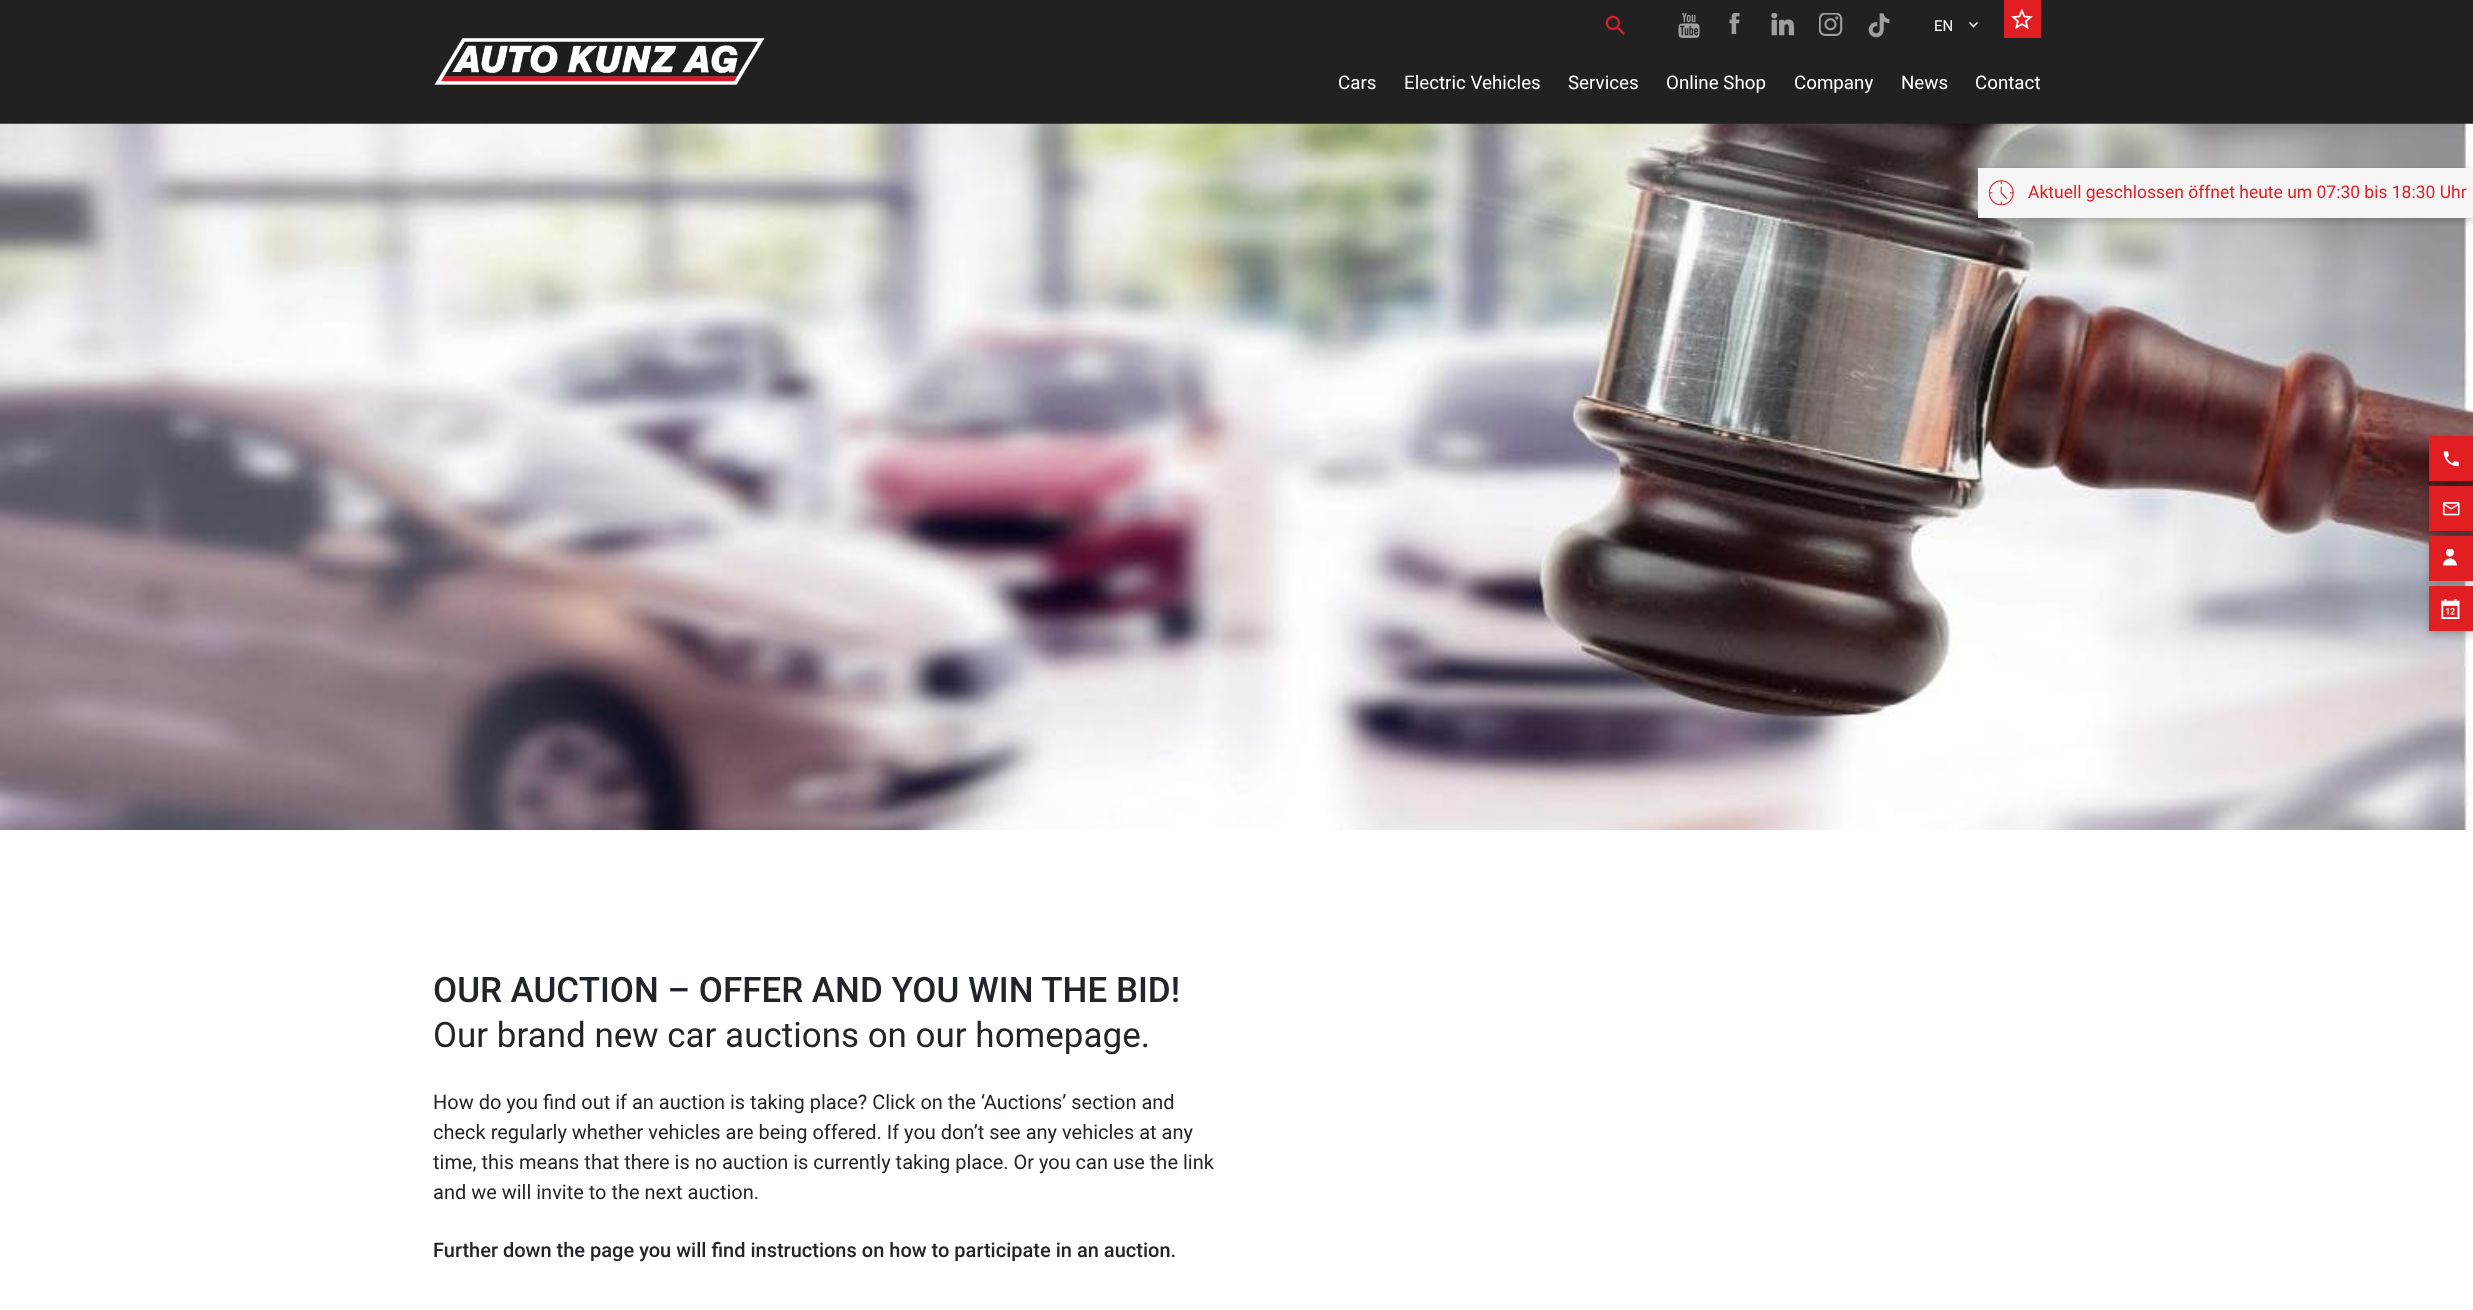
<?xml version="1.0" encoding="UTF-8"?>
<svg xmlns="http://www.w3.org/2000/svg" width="2473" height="1310">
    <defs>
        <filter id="blur1" x="-50%" y="-200%" width="200%" height="500%"><feGaussianBlur stdDeviation="4"/></filter>
    </defs>
    <rect width="100%" height="100%" fill="#FFFFFF"/>
    <rect x="0" y="0" width="2473" height="124" fill="#212121"/>
    <image x="434" y="38" width="331" height="47" href="img_01.png"/>
    <image x="1605" y="15" width="20" height="20" href="img_02.png"/>
    <image x="1678" y="13" width="22" height="25" href="img_03.png"/>
    <image x="1729" y="13" width="11" height="21" href="img_04.png"/>
    <image x="1771" y="13" width="24" height="23" href="img_05.png"/>
    <image x="1819" y="13" width="24" height="23" href="img_06.png"/>
    <image x="1868" y="13" width="22" height="25" href="img_07.png"/>
    <text x="1934" y="31" font-family="Roboto" font-size="15" fill="#FFFFFF">EN</text>
    <path d="M 1977 22 L 1978 23 L 1973.5 27.5 L 1972.5 26.5 Z" fill="#FFFFFF"/>
    <path d="M 1970 22 L 1974.5 26.5 L 1973.5 27.5 L 1969 23 Z" fill="#FFFFFF"/>
    <rect x="2004" y="0" width="37" height="38" fill="#E11F23"/>
    <image x="2011" y="8" width="22" height="22" href="img_08.png"/>
    <text x="1338" y="89" font-family="Roboto" font-size="18.75" fill="#FFFFFF">Cars</text>
    <text x="1404" y="89" font-family="Roboto" font-size="18.75" fill="#FFFFFF">Electric Vehicles</text>
    <text x="1568" y="89" font-family="Roboto" font-size="18.75" fill="#FFFFFF">Services</text>
    <text x="1666" y="89" font-family="Roboto" font-size="18.75" fill="#FFFFFF">Online Shop</text>
    <text x="1794" y="89" font-family="Roboto" font-size="18.75" fill="#FFFFFF">Company</text>
    <text x="1901" y="89" font-family="Roboto" font-size="18.75" fill="#FFFFFF">News</text>
    <text x="1975" y="89" font-family="Roboto" font-size="18.75" fill="#FFFFFF">Contact</text>
    <image x="0" y="123" width="2473" height="707" href="img_14.png"/>
    <rect x="1978" y="171" width="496" height="50" fill="#000000" fill-opacity="0.22" filter="url(#blur1)"/>
    <rect x="1978" y="168" width="495" height="50" fill="#F5F5F5"/>
    <image x="1989" y="180" width="25" height="25" href="img_09.png"/>
    <text x="2028" y="198" font-family="Roboto" font-size="17.5" fill="#E11F23">Aktuell geschlossen öffnet heute um 07:30 bis 18:30 Uhr</text>
    <rect x="2429" y="440" width="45" height="45" fill="#000000" fill-opacity="0.2" filter="url(#blur1)"/>
    <rect x="2429" y="436" width="44" height="45" fill="#E11F23"/>
    <image x="2443" y="451" width="16" height="16" href="img_10.png"/>
    <rect x="2429" y="490" width="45" height="45" fill="#000000" fill-opacity="0.2" filter="url(#blur1)"/>
    <rect x="2429" y="486" width="44" height="45" fill="#E11F23"/>
    <image x="2442" y="502" width="18" height="14" href="img_11.png"/>
    <rect x="2429" y="540" width="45" height="45" fill="#000000" fill-opacity="0.2" filter="url(#blur1)"/>
    <rect x="2429" y="536" width="44" height="45" fill="#E11F23"/>
    <image x="2442" y="549" width="15" height="17" href="img_12.png"/>
    <rect x="2429" y="590" width="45" height="45" fill="#000000" fill-opacity="0.2" filter="url(#blur1)"/>
    <rect x="2429" y="586" width="44" height="45" fill="#E11F23"/>
    <image x="2441" y="599" width="19" height="20" href="img_13.png"/>
    <text x="433" y="1002" font-family="Roboto" font-size="35" font-weight="500" fill="#212529">OUR AUCTION – OFFER AND YOU WIN THE BID!</text>
    <text x="433" y="1047" font-family="Roboto" font-size="35" fill="#212529">Our brand new car auctions on our homepage.</text>
    <text font-family="Roboto" font-size="20" fill="#212529">
        <tspan x="433" y="1109">How do you find out if an auction is taking place? Click on the ‘Auctions’ section and</tspan>
        <tspan x="433" y="1139">check regularly whether vehicles are being offered. If you don’t see any vehicles at any</tspan>
        <tspan x="433" y="1169">time, this means that there is no auction is currently taking place. Or you can use the link</tspan>
        <tspan x="433" y="1199">and we will invite to the next auction.</tspan>
    </text>
    <text x="433" y="1257" font-family="Roboto" font-size="20" font-weight="500" fill="#212529">Further down the page you will find instructions on how to participate in an auction.</text>
</svg>
